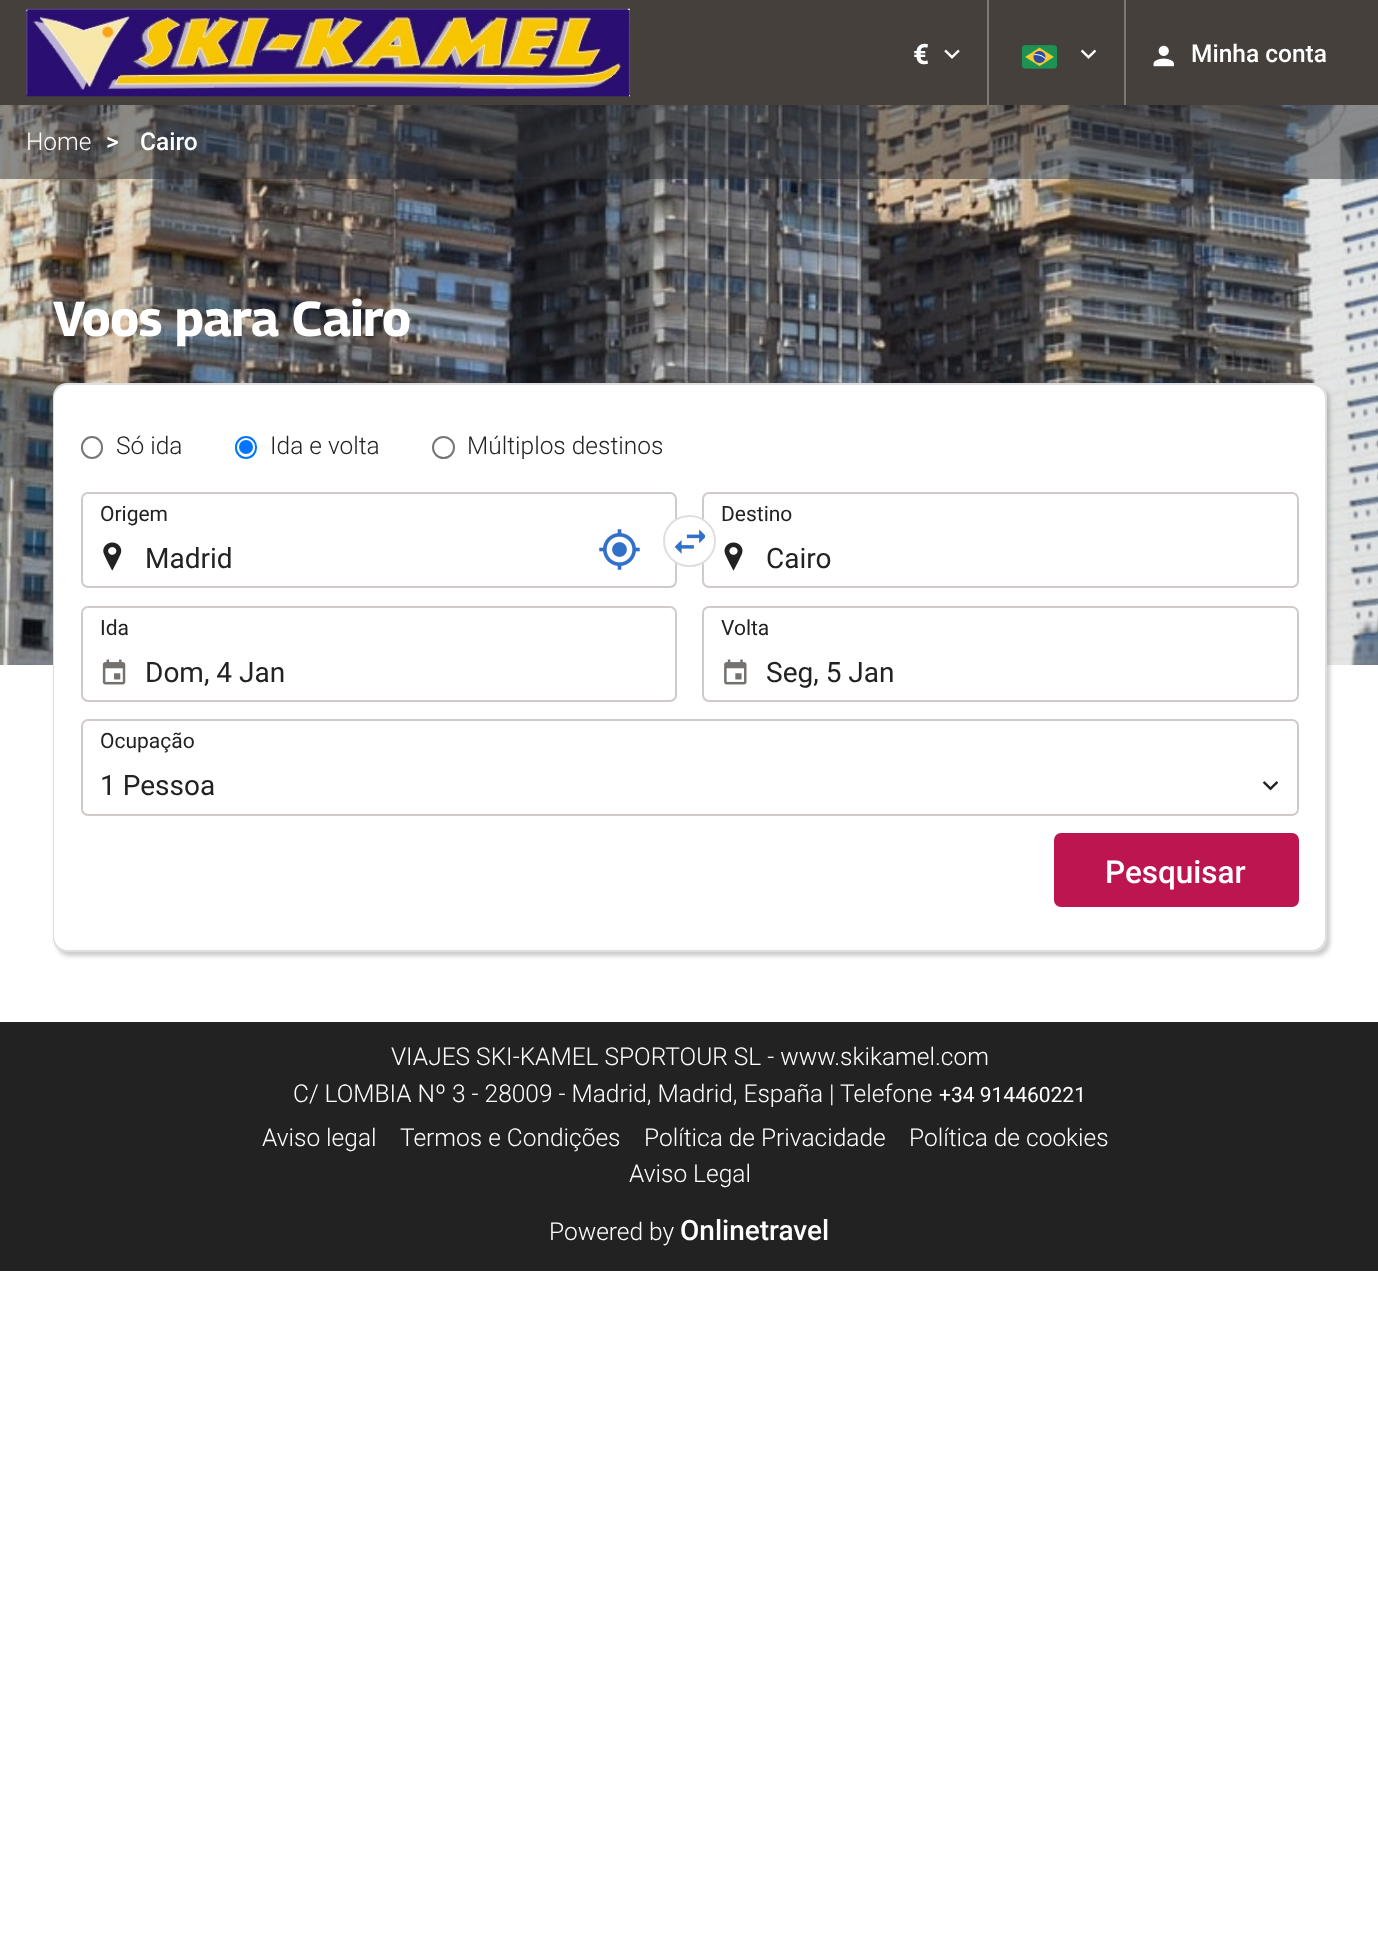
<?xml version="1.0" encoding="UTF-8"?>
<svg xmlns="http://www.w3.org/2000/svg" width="1378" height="1941">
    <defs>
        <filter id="blur1" x="-50%" y="-200%" width="200%" height="500%"><feGaussianBlur stdDeviation="2"/></filter>
    </defs>
    <rect width="100%" height="100%" fill="#FFFFFF"/>
    <rect x="0" y="0" width="1378" height="105" fill="#46403C"/>
    <image x="26" y="8" width="604" height="89" href="img_01.png"/>
    <rect x="987" y="0" width="2" height="105" fill="#7E7977"/>
    <text x="913" y="64" font-family="Roboto" font-size="28" font-weight="700" fill="#FFFFFF">€</text>
    <image x="944" y="49" width="16" height="10" href="img_02.png"/>
    <rect x="1124" y="0" width="2" height="105" fill="#7E7977"/>
    <image x="1022" y="45" width="35" height="24" href="img_03.png"/>
    <image x="1080" y="49" width="17" height="10" href="img_04.png"/>
    <image x="1153" y="45" width="21" height="22" href="img_05.png"/>
    <text x="1191" y="62" font-family="Roboto" font-size="24.5" font-weight="500" fill="#FFFFFF">Minha conta</text>
    <image x="0" y="105" width="1378" height="560" href="img_06.png"/>
    <rect x="0" y="105" width="1378" height="74" fill="#303235" fill-opacity="0.5"/>
    <text x="26" y="150" font-family="Roboto" font-size="24.5" font-weight="300" fill="#FFFFFF">Home</text>
    <text x="106" y="150" font-family="Roboto" font-size="24.5" font-weight="500" fill="#FFFFFF">&gt;</text>
    <text x="140" y="150" font-family="Roboto" font-size="24.5" font-weight="500" fill="#FFFFFF">Cairo</text>
    <text x="53" y="336" font-family="Georama" font-size="49" font-weight="700" fill="#FFFFFF">Voos para Cairo</text>
    <rect x="56" y="387" width="1274" height="569" rx="14" fill="#000000" fill-opacity="0.2" filter="url(#blur1)"/>
    <rect x="53" y="383" width="1274" height="569" rx="14" fill="#DFDFDF"/>
    <rect x="54" y="385" width="1271" height="565" rx="14" fill="#FFFFFF"/>
    <rect x="82" y="437" width="20" height="21" rx="10" fill="none" stroke="#767676" stroke-width="2"/>
    <text x="116" y="454" font-family="Roboto" font-size="24.5" font-weight="300" fill="#222222">Só ida</text>
    <rect x="236" y="437" width="20" height="21" rx="10" fill="none" stroke="#0075FF" stroke-width="2"/>
    <circle cx="246" cy="447" r="7" fill="#0075FF"/>
    <text x="270" y="454" font-family="Roboto" font-size="24.5" font-weight="300" fill="#222222">Ida e volta</text>
    <circle cx="443.5" cy="447.5" r="10.5" fill="none" stroke="#767676" stroke-width="2"/>
    <text x="467" y="454" font-family="Roboto" font-size="24.5" font-weight="300" fill="#222222">Múltiplos destinos</text>
    <image x="103" y="542" width="19" height="29" href="img_07.png"/>
    <rect x="82" y="493" width="594" height="94" rx="6" fill="none" stroke="#D0CBC9" stroke-width="2"/>
    <text x="100" y="521" font-family="Roboto" font-size="21" fill="#222222">Origem</text>
    <text x="145" y="568" font-family="Roboto" font-size="28" fill="#222222">Madrid</text>
    <image x="599" y="529" width="41" height="41" href="img_08.png"/>
    <image x="724" y="542" width="19" height="29" href="img_10.png"/>
    <rect x="703" y="493" width="595" height="94" rx="6" fill="none" stroke="#D0CBC9" stroke-width="2"/>
    <rect x="664" y="516" width="51" height="50" rx="25" fill="#FFFFFF" stroke="#DFDFDF" stroke-width="2"/>
    <image x="674" y="529" width="31" height="25" href="img_09.png"/>
    <text x="721" y="521" font-family="Roboto" font-size="21" fill="#222222">Destino</text>
    <text x="766" y="568" font-family="Roboto" font-size="28" fill="#222222">Cairo</text>
    <image x="102" y="659" width="24" height="26" href="img_11.png"/>
    <rect x="82" y="607" width="594" height="94" rx="6" fill="none" stroke="#D0CBC9" stroke-width="2"/>
    <text x="100" y="635" font-family="Roboto" font-size="21" fill="#222222">Ida</text>
    <text x="145" y="682" font-family="Roboto" font-size="28" fill="#222222">Dom, 4 Jan</text>
    <image x="724" y="659" width="23" height="26" href="img_12.png"/>
    <rect x="703" y="607" width="595" height="94" rx="6" fill="none" stroke="#D0CBC9" stroke-width="2"/>
    <text x="721" y="635" font-family="Roboto" font-size="21" fill="#222222">Volta</text>
    <text x="766" y="682" font-family="Roboto" font-size="28" fill="#222222">Seg, 5 Jan</text>
    <rect x="82" y="720" width="1216" height="95" rx="6" fill="none" stroke="#D0CBC9" stroke-width="2"/>
    <text x="100" y="748" font-family="Roboto" font-size="21" fill="#222222">Ocupação</text>
    <text x="100" y="795" font-family="Roboto" font-size="28" fill="#222222">1 Pessoa</text>
    <image x="1262" y="781" width="17" height="10" href="img_13.png"/>
    <rect x="1054" y="833" width="245" height="74" rx="7" fill="#BD1550"/>
    <text x="1105" y="883" font-family="Roboto" font-size="31.5" font-weight="500" fill="#FFFFFF">Pesquisar</text>
    <rect x="0" y="1022" width="1378" height="249" fill="#222222"/>
    <text x="391" y="1065" font-family="Roboto" font-size="24.5" font-weight="300" fill="#FFFFFF">VIAJES SKI-KAMEL SPORTOUR SL - www.skikamel.com</text>
    <text x="293" y="1102" font-family="Roboto" font-size="24.5" font-weight="300" fill="#FFFFFF">C/ LOMBIA Nº 3 - 28009 - Madrid, Madrid, España | Telefone</text>
    <text x="939" y="1102" font-family="Roboto" font-size="21" fill="#FFFFFF">+34 914460221</text>
    <text x="262" y="1146" font-family="Roboto" font-size="24.5" font-weight="300" fill="#FFFFFF">Aviso legal</text>
    <text x="400" y="1146" font-family="Roboto" font-size="24.5" font-weight="300" fill="#FFFFFF">Termos e Condições</text>
    <text x="644" y="1146" font-family="Roboto" font-size="24.5" font-weight="300" fill="#FFFFFF">Política de Privacidade</text>
    <text x="909" y="1146" font-family="Roboto" font-size="24.5" font-weight="300" fill="#FFFFFF">Política de cookies</text>
    <text x="629" y="1182" font-family="Roboto" font-size="24.5" font-weight="300" fill="#FFFFFF">Aviso Legal</text>
    <text x="549" y="1240" font-family="Roboto" font-size="24.5" font-weight="300" fill="#FFFFFF">Powered by</text>
    <text x="680" y="1240" font-family="Roboto" font-size="28" font-weight="500" fill="#FFFFFF">Onlinetravel</text>
</svg>
